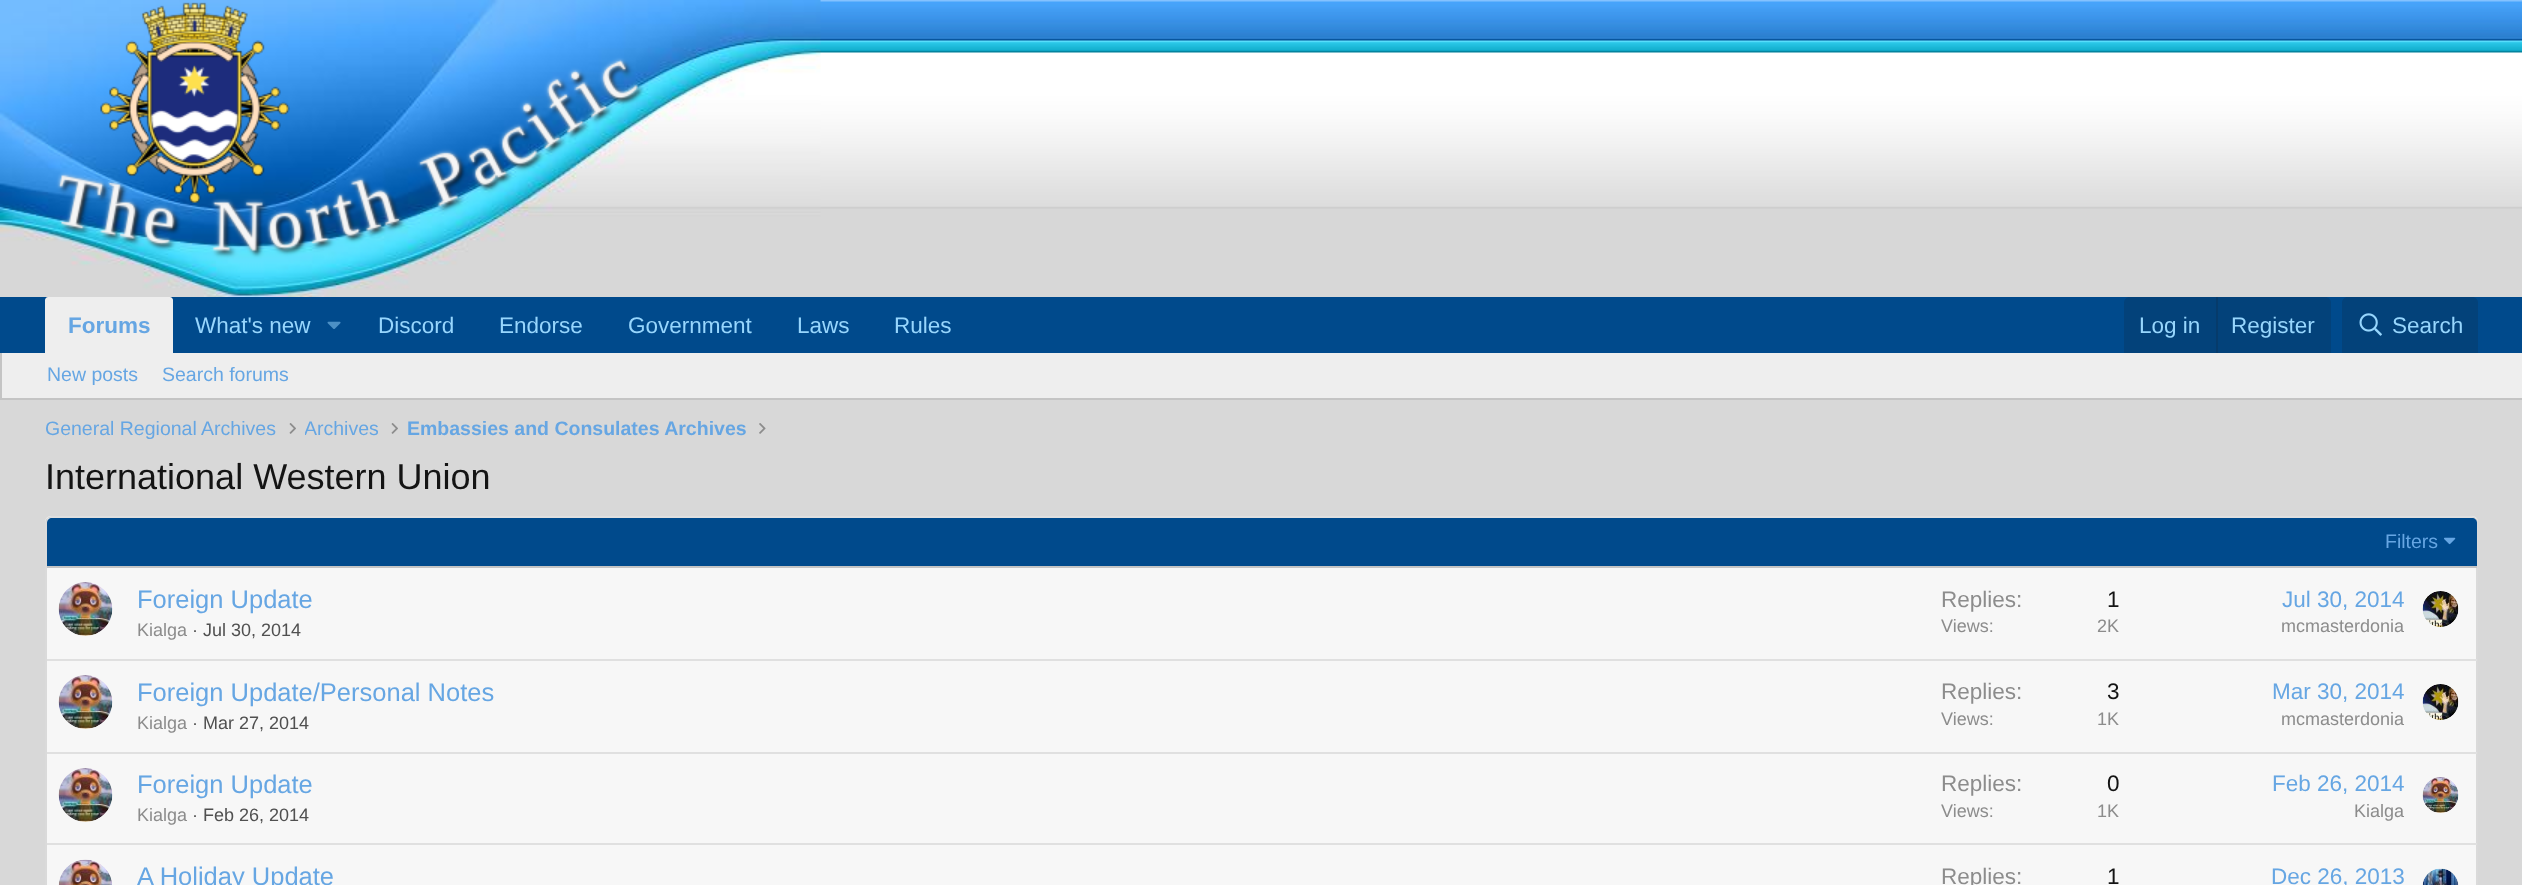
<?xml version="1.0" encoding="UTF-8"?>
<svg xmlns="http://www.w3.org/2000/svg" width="2522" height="885">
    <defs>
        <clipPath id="clip1"><rect x="305" y="414" width="73" height="30"/></clipPath>
    </defs>
    <rect width="100%" height="100%" fill="#D8D8D8"/>
    <image x="820" y="0" width="1702" height="297" href="img_01.png"/>
    <image x="0" y="0" width="821" height="297" href="img_02.png"/>
    <rect x="0" y="297" width="2522" height="56" fill="#004A8C"/>
    <path d="M 48 297 H 170 C 171.5 297 173 298.5 173 300 V 353 H 45 V 300 C 45 298.5 46.5 297 48 297 Z" fill="#EEEEEE"/>
    <text x="68" y="333" font-family="Liberation Sans" font-size="22.5" font-weight="700" fill="#66A6E3">Forums</text>
    <text x="195" y="333" font-family="Liberation Sans" font-size="22.5" fill="#97D6FD">What's new</text>
    <image x="327" y="321" width="14" height="8" href="img_03.png"/>
    <text x="378" y="333" font-family="Liberation Sans" font-size="22.5" fill="#97D6FD">Discord</text>
    <text x="499" y="333" font-family="Liberation Sans" font-size="22.5" fill="#97D6FD">Endorse</text>
    <text x="628" y="333" font-family="Liberation Sans" font-size="22.5" fill="#97D6FD">Government</text>
    <text x="797" y="333" font-family="Liberation Sans" font-size="22.5" fill="#97D6FD">Laws</text>
    <text x="894" y="333" font-family="Liberation Sans" font-size="22.5" fill="#97D6FD">Rules</text>
    <path d="M 2130 297 H 2325 C 2328.5 297 2331 299.5 2331 303 V 353 H 2124 V 303 C 2124 299.5 2126.5 297 2130 297 Z" fill="#03427A"/>
    <text x="2139" y="333" font-family="Liberation Sans" font-size="22.5" fill="#97D6FD">Log in</text>
    <rect x="2216" y="297" width="2" height="56" fill="#063B6B"/>
    <text x="2231" y="333" font-family="Liberation Sans" font-size="22.5" fill="#97D6FD">Register</text>
    <path d="M 2348 297 H 2472 C 2475.5 297 2478 299.5 2478 303 V 353 H 2342 V 303 C 2342 299.5 2344.5 297 2348 297 Z" fill="#03427A"/>
    <image x="2359" y="313" width="23" height="23" href="img_04.png"/>
    <text x="2392" y="333" font-family="Liberation Sans" font-size="22.5" fill="#97D6FD">Search</text>
    <rect x="2" y="353" width="2520" height="45" fill="#EEEEEE"/>
    <rect x="0" y="398" width="2522" height="2" fill="#C4C4C4"/>
    <rect x="0" y="353" width="2" height="46" fill="#C4C4C4"/>
    <text x="47" y="381" font-family="Liberation Sans" font-size="19.5" fill="#66A6E3">New posts</text>
    <text x="162" y="381" font-family="Liberation Sans" font-size="19.5" fill="#66A6E3">Search forums</text>
    <text x="45" y="435" font-family="Liberation Sans" font-size="19.5" fill="#66A6E3">General Regional Archives</text>
    <image x="289" y="423" width="7" height="11" href="img_05.png"/>
    <g clip-path="url(#clip1)">
        <text x="304" y="435" font-family="Liberation Sans" font-size="19.5" fill="#66A6E3">Archives</text>
    </g>
    <image x="391" y="423" width="7" height="11" href="img_05.png"/>
    <text x="407" y="435" font-family="Liberation Sans" font-size="19.5" font-weight="700" fill="#66A6E3">Embassies and Consulates Archives</text>
    <image x="759" y="423" width="7" height="11" href="img_06.png"/>
    <text x="45" y="489" font-family="Liberation Sans" font-size="36" fill="#141414">International Western Union</text>
    <rect x="45" y="516" width="2433" height="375" rx="6" fill="#F7F7F7"/>
    <path d="M 47.5 518.5 C 48.5 517.5 49.5 517 51 517 H 2472 C 2473.5 517 2474.5 517.5 2475.5 518.5" fill="none" stroke="#D8D8D8" stroke-width="1.5"/>
    <path d="M 2475.5 518.5 C 2476.5 519.5 2477 520.5 2477 522 V 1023 C 2477 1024.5 2476.5 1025.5 2475.5 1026.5" fill="none" stroke="#D1D1D1" stroke-width="1.5"/>
    <path d="M 47.5 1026.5 C 46.5 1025.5 46 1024.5 46 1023 V 522 C 46 520.5 46.5 519.5 47.5 518.5" fill="none" stroke="#D1D1D1" stroke-width="1.5"/>
    <path d="M 52 518 H 2472 C 2475 518 2477 520 2477 523 V 567 H 47 V 523 C 47 520 49 518 52 518 Z" fill="#004A8C"/>
    <rect x="47" y="566" width="2430" height="2" fill="#C4C4C4"/>
    <text x="2385" y="548" font-family="Liberation Sans" font-size="19.5" fill="#66A6E3">Filters</text>
    <image x="2444" y="537" width="12" height="8" href="img_07.png"/>
    <image x="58" y="582" width="55" height="54" href="img_08.png"/>
    <text x="137" y="608" font-family="Liberation Sans" font-size="25.5" fill="#66A6E3">Foreign Update</text>
    <text x="137" y="636" font-family="Liberation Sans" font-size="18" fill="#8C8C8C">Kialga</text>
    <text x="192" y="636" font-family="Liberation Sans" font-size="18" fill="#505050">· Jul 30, 2014</text>
    <text x="1941" y="607" font-family="Liberation Sans" font-size="22.5" fill="#8C8C8C">Replies:</text>
    <text x="2107" y="607" font-family="Liberation Sans" font-size="22.5" fill="#141414">1</text>
    <text x="1941" y="632" font-family="Liberation Sans" font-size="18" fill="#8C8C8C">Views:</text>
    <text x="2097" y="632" font-family="Liberation Sans" font-size="18" fill="#8C8C8C">2K</text>
    <text x="2282" y="607" font-family="Liberation Sans" font-size="22.5" fill="#66A6E3">Jul 30, 2014</text>
    <text x="2281" y="632" font-family="Liberation Sans" font-size="18" fill="#8C8C8C">mcmasterdonia</text>
    <image x="2422" y="591" width="37" height="36" href="img_09.png"/>
    <rect x="47" y="659" width="2430" height="2" fill="#E0E0E0"/>
    <image x="58" y="675" width="55" height="54" href="img_08.png"/>
    <text x="137" y="701" font-family="Liberation Sans" font-size="25.5" fill="#66A6E3">Foreign Update/Personal Notes</text>
    <text x="137" y="729" font-family="Liberation Sans" font-size="18" fill="#8C8C8C">Kialga</text>
    <text x="192" y="729" font-family="Liberation Sans" font-size="18" fill="#505050">· Mar 27, 2014</text>
    <text x="1941" y="699" font-family="Liberation Sans" font-size="22.5" fill="#8C8C8C">Replies:</text>
    <text x="2107" y="699" font-family="Liberation Sans" font-size="22.5" fill="#141414">3</text>
    <text x="1941" y="725" font-family="Liberation Sans" font-size="18" fill="#8C8C8C">Views:</text>
    <text x="2097" y="725" font-family="Liberation Sans" font-size="18" fill="#8C8C8C">1K</text>
    <text x="2272" y="699" font-family="Liberation Sans" font-size="22.5" fill="#66A6E3">Mar 30, 2014</text>
    <text x="2281" y="725" font-family="Liberation Sans" font-size="18" fill="#8C8C8C">mcmasterdonia</text>
    <image x="2422" y="684" width="37" height="36" href="img_09.png"/>
    <rect x="47" y="752" width="2430" height="2" fill="#E0E0E0"/>
    <image x="58" y="768" width="55" height="54" href="img_10.png"/>
    <text x="137" y="793" font-family="Liberation Sans" font-size="25.5" fill="#66A6E3">Foreign Update</text>
    <text x="137" y="821" font-family="Liberation Sans" font-size="18" fill="#8C8C8C">Kialga</text>
    <text x="192" y="821" font-family="Liberation Sans" font-size="18" fill="#505050">· Feb 26, 2014</text>
    <text x="1941" y="791" font-family="Liberation Sans" font-size="22.5" fill="#8C8C8C">Replies:</text>
    <text x="2107" y="791" font-family="Liberation Sans" font-size="22.5" fill="#141414">0</text>
    <text x="1941" y="817" font-family="Liberation Sans" font-size="18" fill="#8C8C8C">Views:</text>
    <text x="2097" y="817" font-family="Liberation Sans" font-size="18" fill="#8C8C8C">1K</text>
    <text x="2272" y="791" font-family="Liberation Sans" font-size="22.5" fill="#66A6E3">Feb 26, 2014</text>
    <text x="2354" y="817" font-family="Liberation Sans" font-size="18" fill="#8C8C8C">Kialga</text>
    <image x="2422" y="777" width="37" height="36" href="img_11.png"/>
    <rect x="47" y="843" width="2430" height="2" fill="#E0E0E0"/>
    <image x="58" y="859" width="54" height="26" href="img_12.png"/>
    <text x="137" y="885" font-family="Liberation Sans" font-size="25.5" fill="#66A6E3">A Holiday Update</text>
    <text x="1941" y="884" font-family="Liberation Sans" font-size="22.5" fill="#8C8C8C">Replies:</text>
    <text x="2107" y="884" font-family="Liberation Sans" font-size="22.5" fill="#141414">1</text>
    <text x="2271" y="884" font-family="Liberation Sans" font-size="22.5" fill="#66A6E3">Dec 26, 2013</text>
    <image x="2422" y="868" width="37" height="17" href="img_13.png"/>
</svg>
